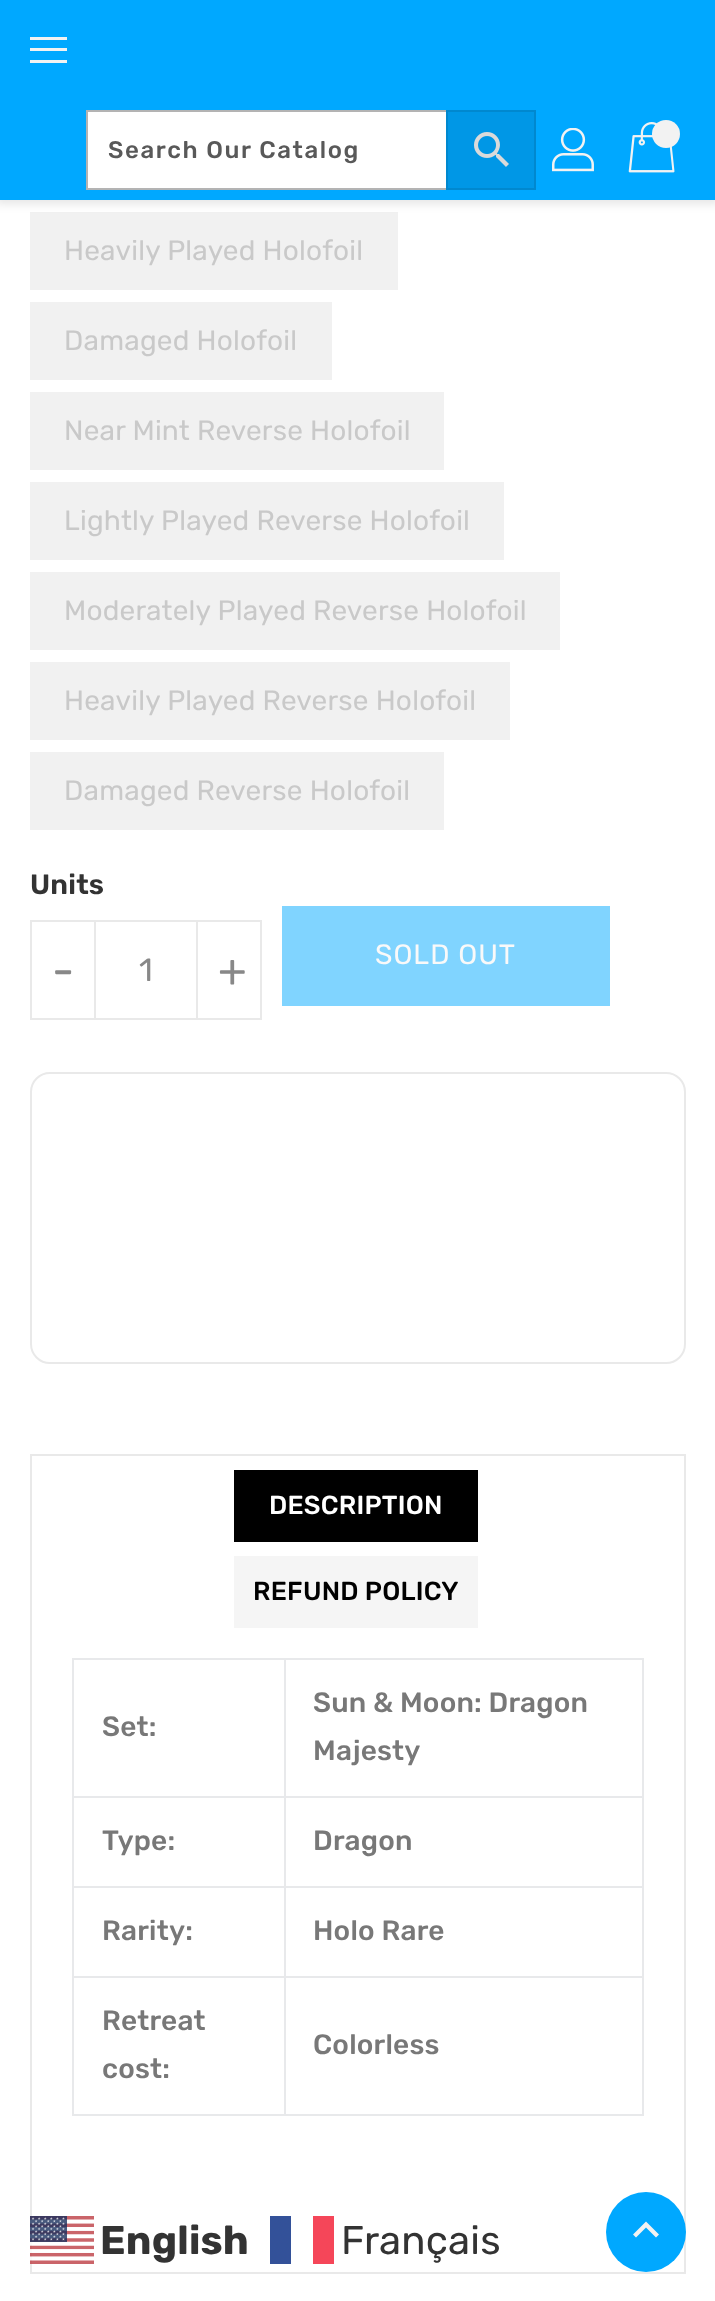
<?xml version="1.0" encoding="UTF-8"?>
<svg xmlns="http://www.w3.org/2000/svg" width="715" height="2301">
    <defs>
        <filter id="blur1" x="-50%" y="-200%" width="200%" height="500%"><feGaussianBlur stdDeviation="5"/></filter>
    </defs>
    <rect width="100%" height="100%" fill="#FFFFFF"/>
    <rect x="30" y="212" width="368" height="78" fill="#F1F1F1"/>
    <rect x="-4" y="-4" width="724" height="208" fill="#000000" fill-opacity="0.1" filter="url(#blur1)"/>
    <rect x="0" y="0" width="715" height="200" fill="#00A8FF"/>
    <rect x="30" y="37" width="37" height="3" fill="#F2F2F2"/>
    <rect x="30" y="48" width="37" height="3" fill="#F2F2F2"/>
    <rect x="30" y="60" width="37" height="3" fill="#F2F2F2"/>
    <rect x="88" y="112" width="358" height="76" fill="#FFFFFF"/>
    <rect x="87" y="111" width="448" height="78" fill="none" stroke="#B3B3B3" stroke-width="2"/>
    <text x="108" y="158" font-family="Rubik" font-size="24" font-weight="500" letter-spacing="1.6" fill="#595959">Search Our Catalog</text>
    <rect x="447" y="111" width="88" height="78" fill="#0097E6" stroke="#0088CF" stroke-width="2"/>
    <image x="474" y="132" width="35" height="35" href="img_01.png"/>
    <image x="552" y="128" width="42" height="44" href="img_02.png"/>
    <image x="628" y="122" width="47" height="51" href="img_03.png"/>
    <circle cx="666" cy="134" r="14" fill="#F2F2F2"/>
    <text x="64" y="260" font-family="Rubik" font-size="28" letter-spacing="0.2" fill="#C9C9C9">Heavily Played Holofoil</text>
    <rect x="30" y="302" width="302" height="78" fill="#F1F1F1"/>
    <text x="64" y="350" font-family="Rubik" font-size="28" letter-spacing="0.2" fill="#C9C9C9">Damaged Holofoil</text>
    <rect x="30" y="392" width="414" height="78" fill="#F1F1F1"/>
    <text x="64" y="440" font-family="Rubik" font-size="28" letter-spacing="0.2" fill="#C9C9C9">Near Mint Reverse Holofoil</text>
    <rect x="30" y="482" width="474" height="78" fill="#F1F1F1"/>
    <text x="64" y="530" font-family="Rubik" font-size="28" letter-spacing="0.2" fill="#C9C9C9">Lightly Played Reverse Holofoil</text>
    <rect x="30" y="572" width="530" height="78" fill="#F1F1F1"/>
    <text x="64" y="620" font-family="Rubik" font-size="28" letter-spacing="0.2" fill="#C9C9C9">Moderately Played Reverse Holofoil</text>
    <rect x="30" y="662" width="480" height="78" fill="#F1F1F1"/>
    <text x="64" y="710" font-family="Rubik" font-size="28" letter-spacing="0.2" fill="#C9C9C9">Heavily Played Reverse Holofoil</text>
    <rect x="30" y="752" width="414" height="78" fill="#F1F1F1"/>
    <text x="64" y="800" font-family="Rubik" font-size="28" letter-spacing="0.2" fill="#C9C9C9">Damaged Reverse Holofoil</text>
    <text x="30" y="894" font-family="Rubik" font-size="28" font-weight="600" letter-spacing="0.2" fill="#333333">Units</text>
    <rect x="31" y="921" width="64" height="98" fill="none" stroke="#E9E9E9" stroke-width="2"/>
    <text x="52" y="986" font-family="Rubik" font-size="46" letter-spacing="1" fill="#888888">-</text>
    <rect x="96" y="920" width="100" height="2" fill="#E9E9E9"/>
    <rect x="96" y="1018" width="100" height="2" fill="#E9E9E9"/>
    <text x="139" y="981" font-family="Rubik" font-size="32" letter-spacing="0.2" fill="#888888">1</text>
    <rect x="197" y="921" width="64" height="98" fill="none" stroke="#E9E9E9" stroke-width="2"/>
    <text x="218" y="986" font-family="Rubik" font-size="46" letter-spacing="1" fill="#888888">+</text>
    <rect x="282" y="906" width="328" height="100" fill="#80D4FF"/>
    <text x="375" y="964" font-family="Rubik" font-size="28" letter-spacing="1" fill="#F9F9F9">SOLD OUT</text>
    <rect x="31" y="1073" width="654" height="290" rx="19" fill="none" stroke="#E9E9E9" stroke-width="2"/>
    <rect x="31" y="1455" width="654" height="818" fill="none" stroke="#E9E9E9" stroke-width="2"/>
    <rect x="234" y="1470" width="244" height="72" fill="#000000"/>
    <text x="269" y="1514" font-family="Rubik" font-size="26" font-weight="500" letter-spacing="0.2" fill="#FFFFFF">DESCRIPTION</text>
    <rect x="234" y="1556" width="244" height="72" fill="#F5F5F5"/>
    <text x="253" y="1600" font-family="Rubik" font-size="26" font-weight="500" letter-spacing="0.2" fill="#000000">REFUND POLICY</text>
    <rect x="284" y="1658" width="360" height="2" fill="#E8E9EB"/>
    <rect x="284" y="1796" width="360" height="2" fill="#E8E9EB"/>
    <rect x="284" y="1886" width="360" height="2" fill="#E8E9EB"/>
    <rect x="284" y="1976" width="360" height="2" fill="#E8E9EB"/>
    <rect x="642" y="1976" width="2" height="140" fill="#E8E9EB"/>
    <rect x="284" y="2114" width="360" height="2" fill="#E8E9EB"/>
    <rect x="284" y="1976" width="2" height="140" fill="#E8E9EB"/>
    <rect x="72" y="1976" width="214" height="2" fill="#E8E9EB"/>
    <rect x="284" y="1886" width="2" height="92" fill="#E8E9EB"/>
    <rect x="72" y="1886" width="214" height="2" fill="#E8E9EB"/>
    <rect x="284" y="1796" width="2" height="92" fill="#E8E9EB"/>
    <rect x="72" y="1796" width="214" height="2" fill="#E8E9EB"/>
    <rect x="284" y="1658" width="2" height="140" fill="#E8E9EB"/>
    <rect x="72" y="1658" width="214" height="2" fill="#E8E9EB"/>
    <rect x="72" y="2114" width="214" height="2" fill="#E8E9EB"/>
    <rect x="72" y="1976" width="2" height="140" fill="#E8E9EB"/>
    <rect x="72" y="1886" width="2" height="92" fill="#E8E9EB"/>
    <rect x="72" y="1796" width="2" height="92" fill="#E8E9EB"/>
    <rect x="72" y="1658" width="2" height="140" fill="#E8E9EB"/>
    <text x="102" y="1736" font-family="Rubik" font-size="28" font-weight="500" letter-spacing="0.2" fill="#787878">Set:</text>
    <rect x="642" y="1886" width="2" height="92" fill="#E8E9EB"/>
    <rect x="642" y="1796" width="2" height="92" fill="#E8E9EB"/>
    <rect x="642" y="1658" width="2" height="140" fill="#E8E9EB"/>
    <text font-family="Rubik" font-size="28" font-weight="500" letter-spacing="0.2" fill="#787878">
        <tspan x="313" y="1712">Sun &amp; Moon: Dragon</tspan>
        <tspan x="313" y="1760">Majesty</tspan>
    </text>
    <text x="102" y="1850" font-family="Rubik" font-size="28" font-weight="500" letter-spacing="0.2" fill="#787878">Type:</text>
    <text x="313" y="1850" font-family="Rubik" font-size="28" font-weight="500" letter-spacing="0.2" fill="#787878">Dragon</text>
    <text x="102" y="1940" font-family="Rubik" font-size="28" font-weight="500" letter-spacing="0.2" fill="#787878">Rarity:</text>
    <text x="313" y="1940" font-family="Rubik" font-size="28" font-weight="500" letter-spacing="0.2" fill="#787878">Holo Rare</text>
    <text font-family="Rubik" font-size="28" font-weight="500" letter-spacing="0.2" fill="#787878">
        <tspan x="102" y="2030">Retreat</tspan>
        <tspan x="102" y="2078">cost:</tspan>
    </text>
    <text x="313" y="2054" font-family="Rubik" font-size="28" font-weight="500" letter-spacing="0.2" fill="#787878">Colorless</text>
    <circle cx="646" cy="2232" r="40" fill="#00A8FF"/>
    <path d="M 646 2221.5 L 659 2234.5 L 656 2237.5 L 646 2227.5 L 636 2237.5 L 633 2234.5 Z" fill="#F2F2F2"/>
    <image x="30" y="2216" width="64" height="48" href="img_04.png"/>
    <text x="100" y="2254" font-family="Rubik" font-size="40" font-weight="700" letter-spacing="0.2" fill="#333333">English</text>
    <text x="341" y="2254" font-family="Rubik" font-size="40" letter-spacing="0.2" fill="#333333">Français</text>
    <rect x="270" y="2216" width="21" height="48" fill="#335199"/>
    <rect x="313" y="2216" width="21" height="48" fill="#F54659"/>
</svg>
